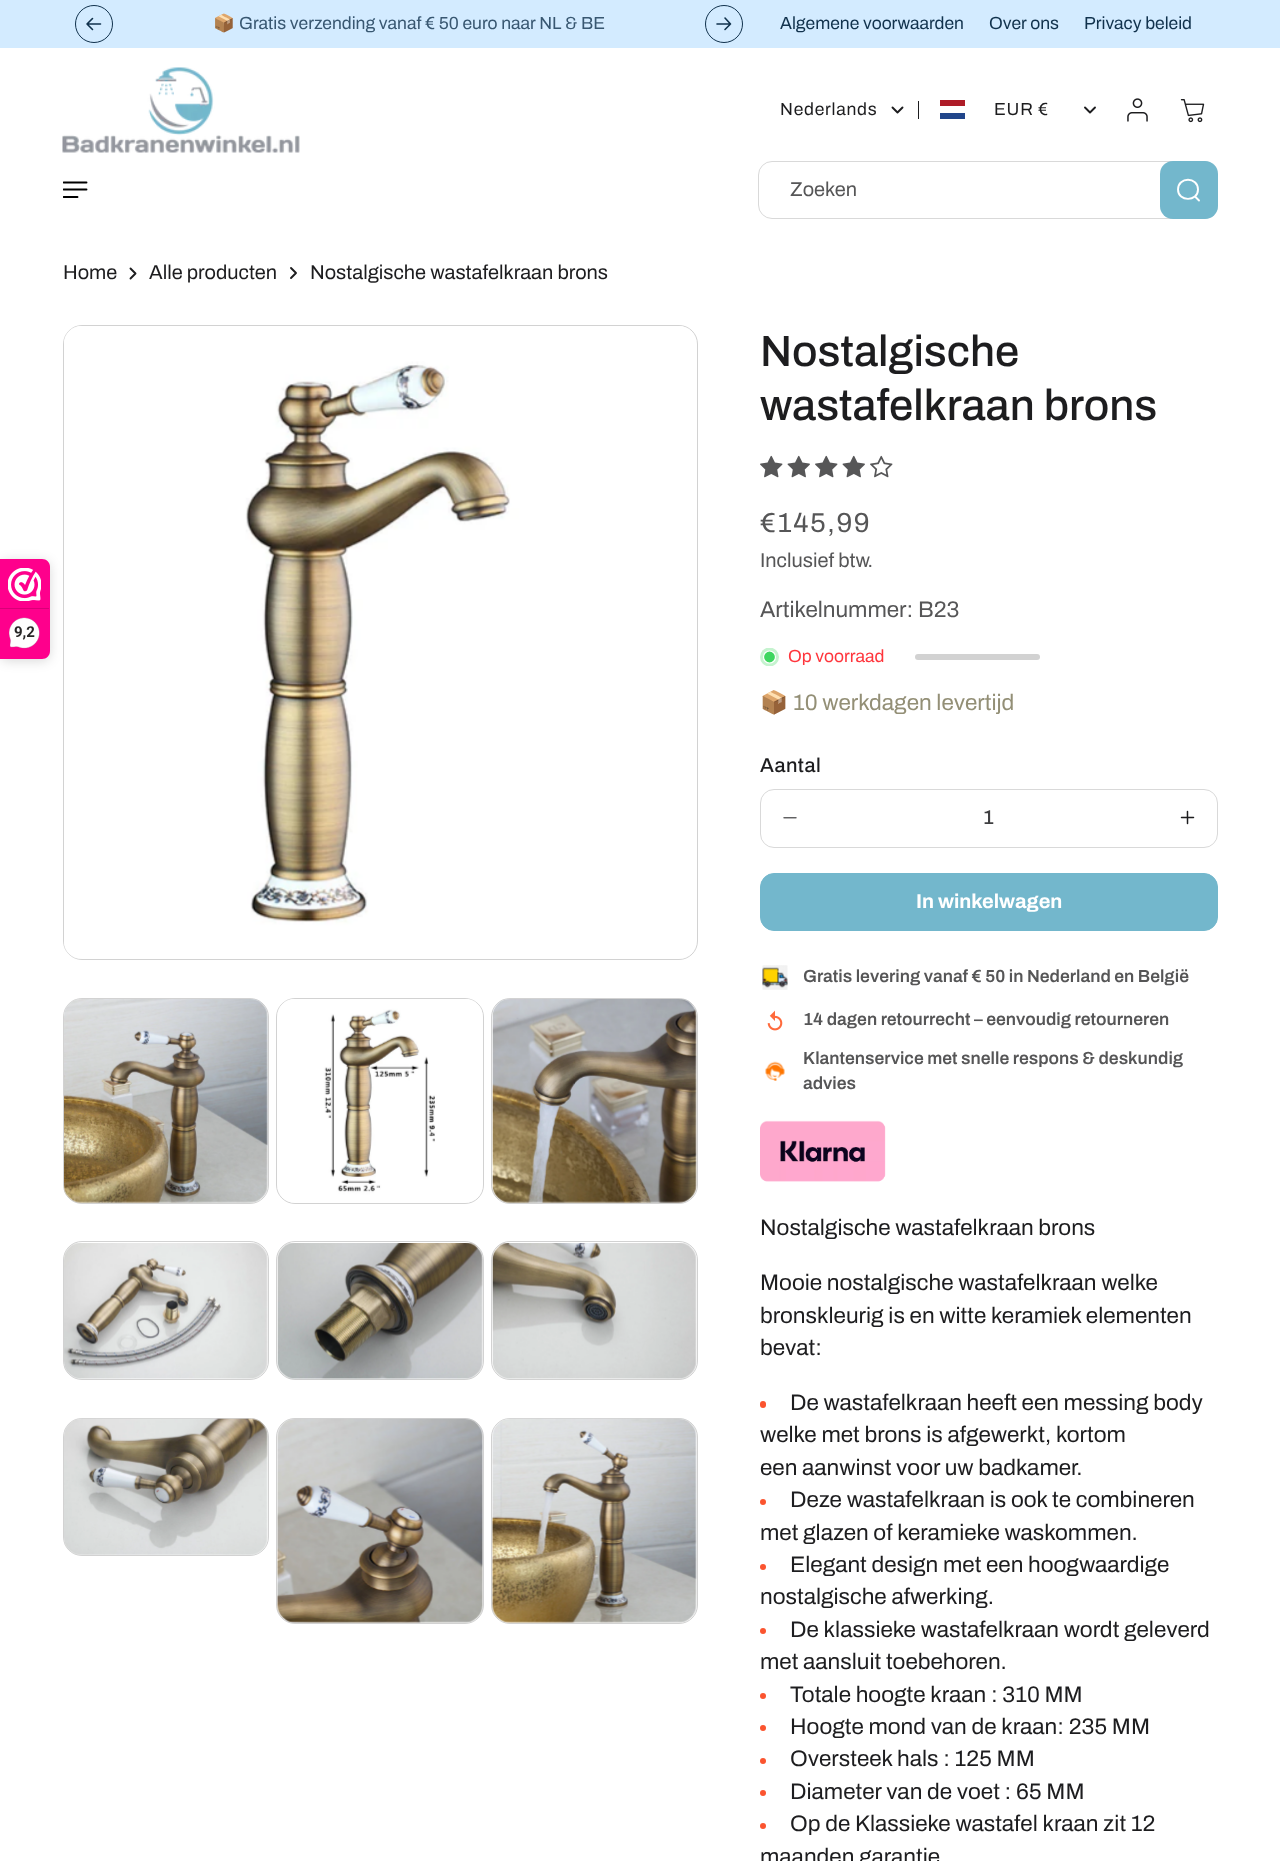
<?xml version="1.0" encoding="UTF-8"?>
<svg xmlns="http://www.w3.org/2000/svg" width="1280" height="1861">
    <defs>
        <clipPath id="clip1"><rect x="63" y="178" width="25" height="25"/></clipPath>
        <filter id="blur1" x="-50%" y="-200%" width="200%" height="500%"><feGaussianBlur stdDeviation="6"/></filter>
        <clipPath id="clip2"><rect x="760" y="648" width="19" height="18"/></clipPath>
    </defs>
    <rect width="100%" height="100%" fill="#FFFFFF"/>
    <rect x="0" y="0" width="1280" height="48" fill="#D3EBFF"/>
    <circle cx="94" cy="24" r="18.5" fill="none" stroke="#11324D"/>
    <path d="M 92.5 18.5 L 87 24 M 87 24 L 92.5 29.5 M 87 24 H 100.5" fill="none" stroke="#11324D" stroke-width="1.6" stroke-linecap="round" stroke-linejoin="round"/>
    <text x="213" y="29" font-family="Noto Color Emoji" font-size="17.5" fill="#385771">📦</text>
    <text x="239" y="29" font-family="Archivo" font-size="17.5" fill="#385771">Gratis verzending vanaf € 50 euro naar NL &amp; BE</text>
    <circle cx="724" cy="24" r="18.5" fill="none" stroke="#11324D"/>
    <path d="M 725 29.5 L 730.5 24 M 730.5 24 L 725 18 M 730.5 24 H 717" fill="none" stroke="#11324D" stroke-width="1.6" stroke-linecap="round" stroke-linejoin="round"/>
    <text x="780" y="29" font-family="Archivo" font-size="17.5" fill="#11324D">Algemene voorwaarden</text>
    <text x="989" y="29" font-family="Archivo" font-size="17.5" fill="#11324D">Over ons</text>
    <text x="1084" y="29" font-family="Archivo" font-size="17.5" fill="#11324D">Privacy beleid</text>
    <image x="62" y="67" width="238" height="86" href="img_01.png"/>
    <text x="780" y="115" font-family="Archivo" font-size="17.5" letter-spacing="0.75" fill="#1D1D1F">Nederlands</text>
    <path d="M 902.5 107.5 L 897.5 112.5 L 892.5 107.5" fill="none" stroke="#1D1D1F" stroke-width="1.9" stroke-linecap="round" stroke-linejoin="round"/>
    <rect x="918" y="101" width="1" height="18" fill="#1D1D1F"/>
    <rect x="940" y="113" width="25" height="6" fill="#21468B"/>
    <rect x="940" y="100" width="25" height="6" fill="#AE1C28"/>
    <text x="994" y="115" font-family="Archivo" font-size="17.5" letter-spacing="0.75" fill="#1D1D1F">EUR €</text>
    <path d="M 1095 107.5 L 1090 112.5 L 1085 107.5" fill="none" stroke="#1D1D1F" stroke-width="1.9" stroke-linecap="round" stroke-linejoin="round"/>
    <image x="1127" y="98" width="21" height="24" href="img_02.png"/>
    <image x="1180" y="99" width="25" height="24" href="img_03.png"/>
    <g clip-path="url(#clip1)">
        <path d="M 77.5 197 H 63.5 M 86.5 189.5 H 63.5 M 86.5 182.5 H 63.5" fill="none" stroke="#000000" stroke-width="1.9" stroke-linecap="round"/>
    </g>
    <rect x="758.5" y="161.5" width="459" height="57" rx="13.5" fill="none" stroke="#D9D9D9"/>
    <text x="790" y="196" font-family="Archivo" font-size="20" fill="#565657">Zoeken</text>
    <rect x="1160" y="161" width="58" height="58" rx="13" fill="#73B7CC"/>
    <path d="M 1195 196.5 L 1199 200.5 M 1198 189.5 C 1198 202 1178 202 1178 189.5 C 1178 176.5 1198 176.5 1198 189.5 Z" fill="none" stroke="#FFFFFF" stroke-width="1.9" stroke-linecap="round"/>
    <rect x="63.5" y="325.5" width="634" height="634" rx="18.5" fill="none" stroke="#D2D2D2"/>
    <image x="64" y="326" width="626" height="633" href="img_06.png"/>
    <rect x="0" y="561" width="50" height="100" rx="8" fill="#000000" fill-opacity="0.15" filter="url(#blur1)"/>
    <path d="M 0 559 H 42 C 46.5 559 50 562.5 50 567 V 651 C 50 655.5 46.5 659 42 659 H 0 Z" fill="#FE008C"/>
    <image x="8" y="568" width="33" height="33" href="img_04.png"/>
    <rect x="0" y="608" width="49" height="1" fill="#D80077"/>
    <image x="9" y="617" width="31" height="32" href="img_05.png"/>
    <text x="14" y="637" font-family="Roboto" font-size="15" font-weight="700" fill="#272626">9,2</text>
    <text x="63" y="279" font-family="Archivo" font-size="20" fill="#1D1D1F">Home</text>
    <path d="M 130.5 268.5 L 135.5 273.5 L 130.5 278.5" fill="none" stroke="#1D1D1F" stroke-width="1.9" stroke-linecap="round" stroke-linejoin="round"/>
    <text x="149" y="279" font-family="Archivo" font-size="20" fill="#1D1D1F">Alle producten</text>
    <path d="M 291 268 L 296 273 L 291 278" fill="none" stroke="#1D1D1F" stroke-width="1.9" stroke-linecap="round" stroke-linejoin="round"/>
    <text x="310" y="279" font-family="Archivo" font-size="20" fill="#1D1D1F">Nostalgische wastafelkraan brons</text>
    <rect x="63.5" y="998.5" width="205" height="205" rx="18.5" fill="none" stroke="#D2D2D2"/>
    <image x="64" y="999" width="204" height="204" href="img_07.png"/>
    <rect x="276.5" y="998.5" width="207" height="205" rx="18.5" fill="none" stroke="#D2D2D2"/>
    <image x="277" y="999" width="206" height="204" href="img_08.png"/>
    <rect x="491.5" y="998.5" width="206" height="205" rx="18.5" fill="none" stroke="#D2D2D2"/>
    <image x="492" y="999" width="205" height="204" href="img_09.png"/>
    <rect x="63.5" y="1241.5" width="205" height="138" rx="18.5" fill="none" stroke="#D2D2D2"/>
    <image x="64" y="1243" width="204" height="136" href="img_10.png"/>
    <rect x="276.5" y="1241.5" width="207" height="138" rx="18.5" fill="none" stroke="#D2D2D2"/>
    <image x="277" y="1243" width="206" height="137" href="img_11.png"/>
    <rect x="491.5" y="1241.5" width="206" height="138" rx="18.5" fill="none" stroke="#D2D2D2"/>
    <image x="492" y="1243" width="205" height="136" href="img_12.png"/>
    <rect x="63.5" y="1418.5" width="205" height="137" rx="18.5" fill="none" stroke="#D2D2D2"/>
    <image x="64" y="1418" width="204" height="137" href="img_13.png"/>
    <rect x="276.5" y="1418.5" width="207" height="205" rx="18.5" fill="none" stroke="#D2D2D2"/>
    <image x="277" y="1418" width="206" height="205" href="img_14.png"/>
    <rect x="491.5" y="1418.5" width="206" height="205" rx="18.5" fill="none" stroke="#D2D2D2"/>
    <image x="492" y="1418" width="205" height="205" href="img_15.png"/>
    <text font-family="Archivo" font-size="43.75" font-weight="500" fill="#1D1D1F">
        <tspan x="760" y="366">Nostalgische</tspan>
        <tspan x="760" y="420">wastafelkraan brons</tspan>
    </text>
    <image x="760" y="455" width="23" height="23" href="img_16.png"/>
    <image x="787" y="455" width="23" height="23" href="img_17.png"/>
    <image x="815" y="455" width="23" height="23" href="img_16.png"/>
    <image x="842" y="455" width="23" height="23" href="img_17.png"/>
    <image x="870" y="455" width="23" height="23" href="img_18.png"/>
    <text x="760" y="532" font-family="Archivo" font-size="27.5" letter-spacing="1.5" fill="#565657">€145,99</text>
    <text x="760" y="567" font-family="Archivo" font-size="20" fill="#565657">Inclusief btw.</text>
    <text x="760" y="617" font-family="Archivo" font-size="22.5" fill="#565657">Artikelnummer: B23</text>
    <g clip-path="url(#clip2)">
        <circle cx="769.5" cy="657" r="9.5" fill="#C5F3CF"/>
    </g>
    <circle cx="769.5" cy="657" r="6" fill="#3ED660" stroke="#FFFFFF" stroke-width="1.2"/>
    <text x="788" y="662" font-family="Archivo" font-size="17.5" fill="#FF353C">Op voorraad</text>
    <rect x="915" y="654" width="125" height="6" rx="3" fill="#D2D2D2"/>
    <text x="760" y="710" font-family="Noto Color Emoji" font-size="22.5" fill="#938F76">📦</text>
    <text x="793" y="710" font-family="Archivo" font-size="22.5" fill="#938F76">10 werkdagen levertijd</text>
    <text x="760" y="772" font-family="Archivo" font-size="20" font-weight="500" letter-spacing="0.5" fill="#1D1D1F">Aantal</text>
    <image x="783" y="817" width="14" height="2" href="img_19.png"/>
    <image x="1180" y="810" width="15" height="15" href="img_20.png"/>
    <rect x="760.5" y="789.5" width="457" height="58" rx="13.5" fill="none" stroke="#D9D9D9"/>
    <text x="983" y="824" font-family="Archivo" font-size="20" font-weight="500" fill="#3F3F41">1</text>
    <rect x="760.5" y="873.5" width="457" height="57" rx="13.5" fill="#73B7CC" stroke="#73B7CC"/>
    <text x="916" y="908" font-family="Archivo" font-size="20" font-weight="700" fill="#FFFFFF">In winkelwagen</text>
    <image x="762" y="965" width="26" height="25" href="img_21.png"/>
    <text x="803" y="982" font-family="Archivo" font-size="17.5" font-weight="600" fill="#565657">Gratis levering vanaf € 50 in Nederland en België</text>
    <image x="767" y="1010" width="16" height="21" href="img_22.png"/>
    <text x="803" y="1025" font-family="Archivo" font-size="17.5" font-weight="600" fill="#565657">14 dagen retourrecht – eenvoudig retourneren</text>
    <image x="765" y="1061" width="20" height="20" href="img_23.png"/>
    <text font-family="Archivo" font-size="17.5" font-weight="600" fill="#565657">
        <tspan x="803" y="1064">Klantenservice met snelle respons &amp; deskundig</tspan>
        <tspan x="803" y="1089">advies</tspan>
    </text>
    <image x="760" y="1120" width="126" height="62" href="img_24.png"/>
    <text x="760" y="1235" font-family="Archivo" font-size="22.5" fill="#1D1D1F">Nostalgische wastafelkraan brons</text>
    <text font-family="Archivo" font-size="22.5" fill="#1D1D1F">
        <tspan x="760" y="1290">Mooie nostalgische wastafelkraan welke</tspan>
        <tspan x="760" y="1323">bronskleurig is en witte keramiek elementen</tspan>
        <tspan x="760" y="1355">bevat:</tspan>
    </text>
    <rect x="760" y="1401" width="6" height="7" rx="3" fill="#FB542F"/>
    <text x="790" y="1410" font-family="Archivo" font-size="22.5" fill="#1D1D1F">De wastafelkraan heeft een messing body</text>
    <text font-family="Archivo" font-size="22.5" fill="#1D1D1F">
        <tspan x="760" y="1442">welke met brons is afgewerkt, kortom</tspan>
        <tspan x="760" y="1475">een aanwinst voor uw badkamer.</tspan>
    </text>
    <circle cx="763" cy="1502" r="3" fill="#FB542F"/>
    <text x="790" y="1507" font-family="Archivo" font-size="22.5" fill="#1D1D1F">Deze wastafelkraan is ook te combineren</text>
    <text x="760" y="1540" font-family="Archivo" font-size="22.5" fill="#1D1D1F">met glazen of keramieke waskommen.</text>
    <circle cx="763" cy="1567" r="3" fill="#FB542F"/>
    <text x="790" y="1572" font-family="Archivo" font-size="22.5" fill="#1D1D1F">Elegant design met een hoogwaardige</text>
    <text x="760" y="1604" font-family="Archivo" font-size="22.5" fill="#1D1D1F">nostalgische afwerking.</text>
    <circle cx="763" cy="1631" r="3" fill="#FB542F"/>
    <text x="790" y="1637" font-family="Archivo" font-size="22.5" fill="#1D1D1F">De klassieke wastafelkraan wordt geleverd</text>
    <text x="760" y="1669" font-family="Archivo" font-size="22.5" fill="#1D1D1F">met aansluit toebehoren.</text>
    <circle cx="763" cy="1696" r="3" fill="#FB542F"/>
    <text x="790" y="1702" font-family="Archivo" font-size="22.5" fill="#1D1D1F">Totale hoogte kraan : 310 MM</text>
    <circle cx="763" cy="1728" r="3" fill="#FB542F"/>
    <text x="790" y="1734" font-family="Archivo" font-size="22.5" fill="#1D1D1F">Hoogte mond van de kraan: 235 MM</text>
    <circle cx="763" cy="1761" r="3" fill="#FB542F"/>
    <text x="790" y="1766" font-family="Archivo" font-size="22.5" fill="#1D1D1F">Oversteek hals : 125 MM</text>
    <circle cx="763" cy="1793" r="3" fill="#FB542F"/>
    <text x="790" y="1799" font-family="Archivo" font-size="22.5" fill="#1D1D1F">Diameter van de voet : 65 MM</text>
    <circle cx="763" cy="1826" r="3" fill="#FB542F"/>
    <text x="790" y="1831" font-family="Archivo" font-size="22.5" fill="#1D1D1F">Op de Klassieke wastafel kraan zit 12</text>
    <text x="760" y="1864" font-family="Archivo" font-size="22.5" fill="#1D1D1F">maanden garantie</text>
</svg>
